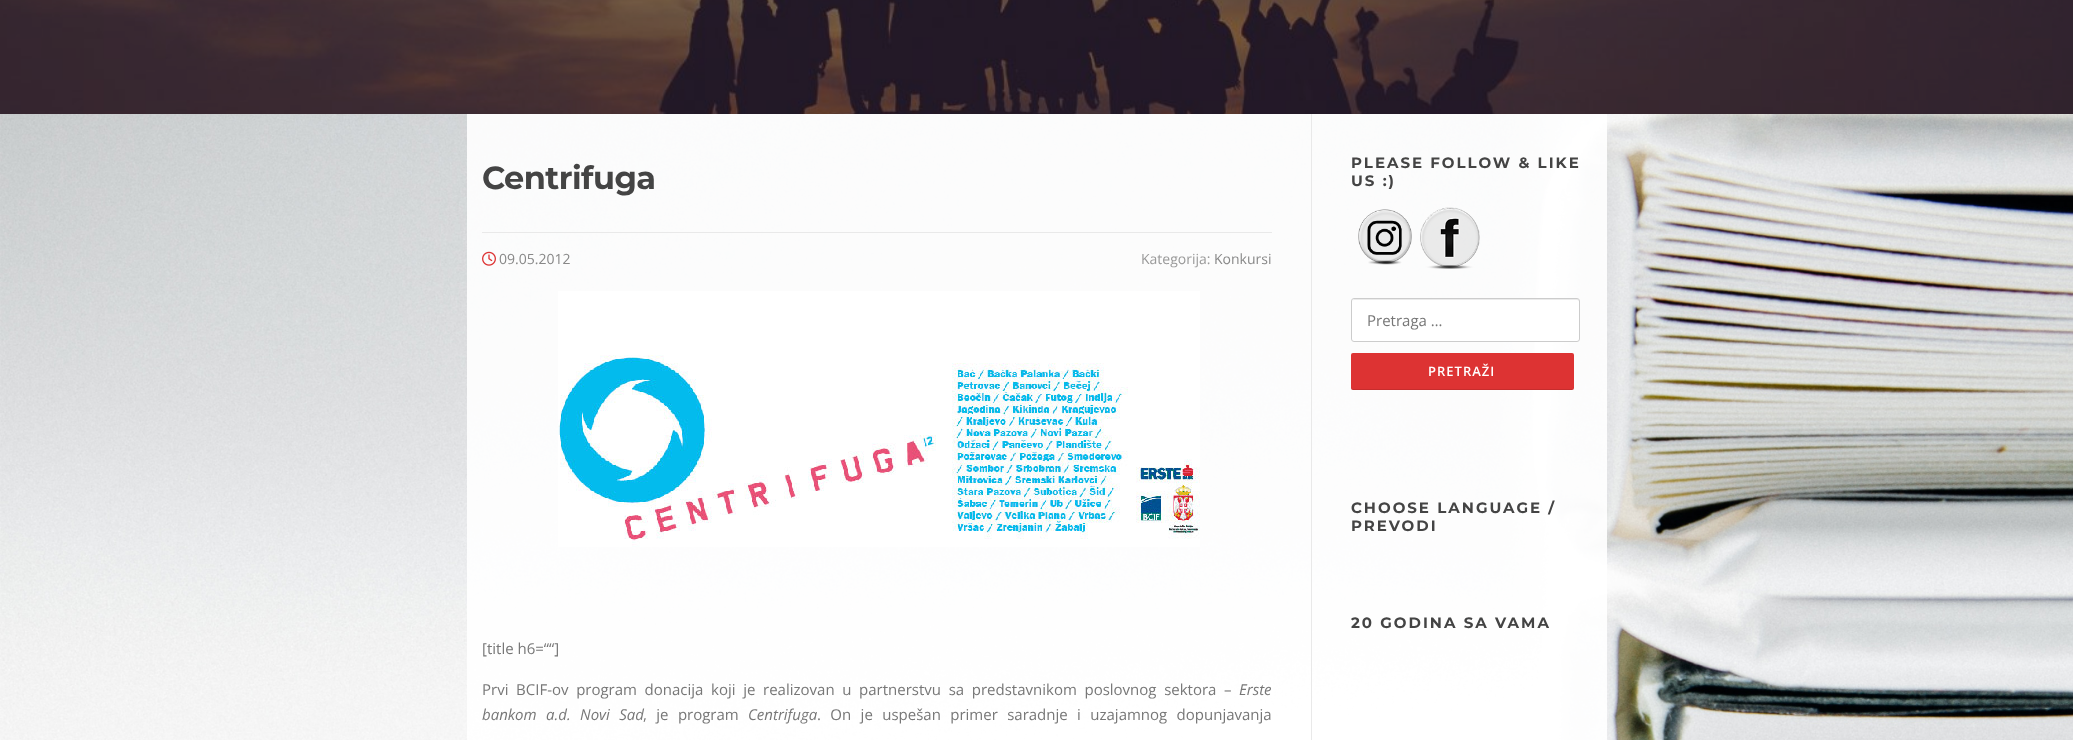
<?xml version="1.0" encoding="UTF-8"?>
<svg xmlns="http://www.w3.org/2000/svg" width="2073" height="740">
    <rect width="100%" height="100%" fill="#FFFFFF"/>
    <image x="0" y="114" width="2073" height="626" href="img_01.png"/>
    <image x="0" y="0" width="2073" height="114" href="img_02.png"/>
    <rect x="467" y="114" width="1140" height="626" fill="#FFFFFF" fill-opacity="0.9"/>
    <rect x="1311" y="114" width="1" height="626" fill="#E9E9E9"/>
    <text x="482" y="189" font-family="Montserrat" font-size="32" font-weight="700" letter-spacing="-0.5" fill="#444444">Centrifuga</text>
    <rect x="482" y="232" width="790" height="1" fill="#E9E9E9"/>
    <image x="482" y="251" width="14" height="15" href="img_03.png"/>
    <text x="499" y="264" font-family="Open Sans" font-size="14" fill="#888888">09.05.2012</text>
    <text x="1141" y="264" font-family="Open Sans" font-size="14" fill="#999999">Kategorija:</text>
    <text x="1214" y="264" font-family="Open Sans" font-size="14" fill="#888888">Konkursi</text>
    <image x="558" y="291" width="642" height="256" href="img_04.png"/>
    <text x="482" y="654" font-family="Open Sans" font-size="15" fill="#777777">[title h6=““]</text>
    <text x="482" y="695" word-spacing="3.75" font-family="Open Sans" font-size="15" fill="#777777">Prvi BCIF-ov program donacija koji je realizovan u partnerstvu sa predstavnikom poslovnog sektora –</text>
    <text x="1239" y="695" font-family="Open Sans" font-size="15" font-style="italic" fill="#777777">Erste</text>
    <text x="482" y="720" word-spacing="5.5" font-family="Open Sans" font-size="15" font-style="italic" fill="#777777">bankom a.d. Novi Sad</text>
    <text x="643" y="720" word-spacing="5.5" font-family="Open Sans" font-size="15" fill="#777777">, je program</text>
    <text x="748" y="720" font-family="Open Sans" font-size="15" font-style="italic" fill="#777777">Centrifuga</text>
    <text x="817" y="720" word-spacing="5.5" font-family="Open Sans" font-size="15" fill="#777777">. On je uspešan primer saradnje i uzajamnog dopunjavanja</text>
    <text font-family="Montserrat" font-size="15" font-weight="700" letter-spacing="2" fill="#444444">
        <tspan x="1351" y="168">PLEASE FOLLOW &amp; LIKE</tspan>
        <tspan x="1351" y="186">US :)</tspan>
    </text>
    <image x="1358" y="209" width="54" height="56" href="img_05.png"/>
    <image x="1420" y="207" width="60" height="62" href="img_06.png"/>
    <rect x="1351" y="298" width="229" height="44" rx="3" fill="#FFFFFF"/>
    <path d="M 1354 300 H 1577 C 1578 300 1579 301 1579 302 C 1579 301 1579 299 1577 299 H 1354 L 1353 300 L 1352 302 C 1352 301 1353 300 1354 300 Z" fill="#EBEBEB"/>
    <rect x="1351.5" y="298.5" width="228" height="43" rx="2.5" fill="none" stroke="#CCCCCC"/>
    <text x="1367" y="326" font-family="Open Sans" font-size="15" fill="#777777">Pretraga …</text>
    <rect x="1351" y="353" width="223" height="37" rx="2" fill="#DD3333"/>
    <path d="M 1351 387 C 1351 388 1351 390 1353 390 H 1572 L 1573 389 L 1574 387 C 1574 388 1573 389 1572 389 H 1353 C 1352 389 1351 388 1351 387 Z" fill="#000000" fill-opacity="0.1"/>
    <text x="1428" y="376" font-family="Open Sans" font-size="13" font-weight="600" letter-spacing="1" fill="#FFFFFF">PRETRAŽI</text>
    <text font-family="Montserrat" font-size="15" font-weight="700" letter-spacing="2" fill="#444444">
        <tspan x="1351" y="513">CHOOSE LANGUAGE /</tspan>
        <tspan x="1351" y="531">PREVODI</tspan>
    </text>
    <text x="1351" y="628" font-family="Montserrat" font-size="15" font-weight="700" letter-spacing="2" fill="#444444">20 GODINA SA VAMA</text>
</svg>
